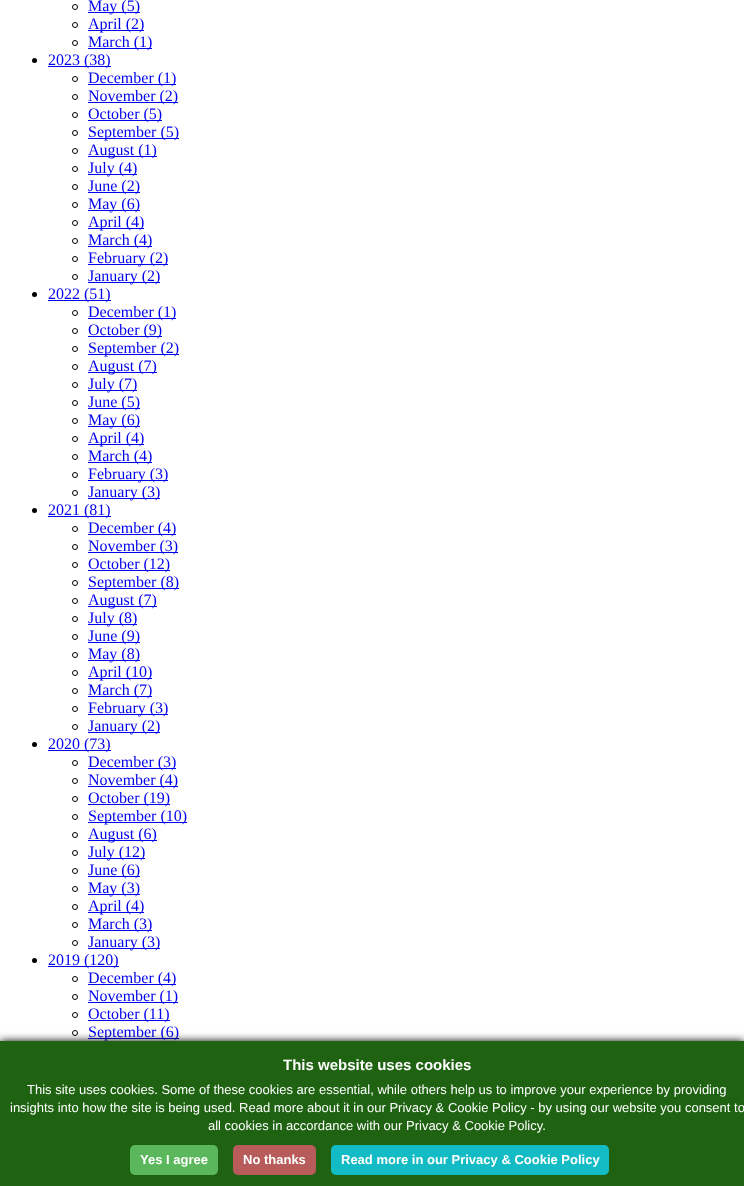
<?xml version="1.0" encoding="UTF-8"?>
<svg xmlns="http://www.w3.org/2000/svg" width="744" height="1186">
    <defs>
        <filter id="blur1" x="-50%" y="-200%" width="200%" height="500%"><feGaussianBlur stdDeviation="4"/></filter>
    </defs>
    <rect width="100%" height="100%" fill="#FFFFFF"/>
    <circle cx="75" cy="7" r="2.5" fill="none" stroke="#000000"/>
    <rect x="88" y="12" width="52" height="1" fill="#0000EE"/>
    <text x="88" y="11" font-family="Liberation Serif" font-size="16" fill="#0000EE">May (5)</text>
    <circle cx="75" cy="25" r="2.5" fill="none" stroke="#000000"/>
    <rect x="88" y="30" width="56" height="1" fill="#0000EE"/>
    <text x="88" y="29" font-family="Liberation Serif" font-size="16" fill="#0000EE">April (2)</text>
    <circle cx="75" cy="43" r="2.5" fill="none" stroke="#000000"/>
    <rect x="88" y="48" width="64" height="1" fill="#0000EE"/>
    <text x="88" y="47" font-family="Liberation Serif" font-size="16" fill="#0000EE">March (1)</text>
    <circle cx="34.5" cy="60.5" r="2.5" fill="#000000"/>
    <rect x="48" y="66" width="63" height="1" fill="#0000EE"/>
    <text x="48" y="65" font-family="Liberation Serif" font-size="16" fill="#0000EE">2023 (38)</text>
    <circle cx="75" cy="79" r="2.5" fill="none" stroke="#000000"/>
    <rect x="88" y="84" width="88" height="1" fill="#0000EE"/>
    <text x="88" y="83" font-family="Liberation Serif" font-size="16" fill="#0000EE">December (1)</text>
    <circle cx="75" cy="97" r="2.5" fill="none" stroke="#000000"/>
    <rect x="88" y="102" width="90" height="1" fill="#0000EE"/>
    <text x="88" y="101" font-family="Liberation Serif" font-size="16" fill="#0000EE">November (2)</text>
    <circle cx="75" cy="115" r="2.5" fill="none" stroke="#000000"/>
    <rect x="88" y="120" width="74" height="1" fill="#0000EE"/>
    <text x="88" y="119" font-family="Liberation Serif" font-size="16" fill="#0000EE">October (5)</text>
    <circle cx="75" cy="133" r="2.5" fill="none" stroke="#000000"/>
    <rect x="88" y="138" width="91" height="1" fill="#0000EE"/>
    <text x="88" y="137" font-family="Liberation Serif" font-size="16" fill="#0000EE">September (5)</text>
    <circle cx="75" cy="151" r="2.5" fill="none" stroke="#000000"/>
    <rect x="88" y="156" width="69" height="1" fill="#0000EE"/>
    <text x="88" y="155" font-family="Liberation Serif" font-size="16" fill="#0000EE">August (1)</text>
    <circle cx="75" cy="169" r="2.5" fill="none" stroke="#000000"/>
    <rect x="88" y="174" width="49" height="1" fill="#0000EE"/>
    <text x="88" y="173" font-family="Liberation Serif" font-size="16" fill="#0000EE">July (4)</text>
    <circle cx="75" cy="187" r="2.5" fill="none" stroke="#000000"/>
    <rect x="88" y="192" width="52" height="1" fill="#0000EE"/>
    <text x="88" y="191" font-family="Liberation Serif" font-size="16" fill="#0000EE">June (2)</text>
    <circle cx="75" cy="205" r="2.5" fill="none" stroke="#000000"/>
    <rect x="88" y="210" width="52" height="1" fill="#0000EE"/>
    <text x="88" y="209" font-family="Liberation Serif" font-size="16" fill="#0000EE">May (6)</text>
    <circle cx="75" cy="223" r="2.5" fill="none" stroke="#000000"/>
    <rect x="88" y="228" width="56" height="1" fill="#0000EE"/>
    <text x="88" y="227" font-family="Liberation Serif" font-size="16" fill="#0000EE">April (4)</text>
    <circle cx="75" cy="241" r="2.5" fill="none" stroke="#000000"/>
    <rect x="88" y="246" width="64" height="1" fill="#0000EE"/>
    <text x="88" y="245" font-family="Liberation Serif" font-size="16" fill="#0000EE">March (4)</text>
    <circle cx="75" cy="259" r="2.5" fill="none" stroke="#000000"/>
    <rect x="88" y="264" width="80" height="1" fill="#0000EE"/>
    <text x="88" y="263" font-family="Liberation Serif" font-size="16" fill="#0000EE">February (2)</text>
    <circle cx="75" cy="277" r="2.5" fill="none" stroke="#000000"/>
    <rect x="88" y="282" width="72" height="1" fill="#0000EE"/>
    <text x="88" y="281" font-family="Liberation Serif" font-size="16" fill="#0000EE">January (2)</text>
    <circle cx="34.5" cy="294.5" r="2.5" fill="#000000"/>
    <rect x="48" y="300" width="63" height="1" fill="#0000EE"/>
    <text x="48" y="299" font-family="Liberation Serif" font-size="16" fill="#0000EE">2022 (51)</text>
    <circle cx="75" cy="313" r="2.5" fill="none" stroke="#000000"/>
    <rect x="88" y="318" width="88" height="1" fill="#0000EE"/>
    <text x="88" y="317" font-family="Liberation Serif" font-size="16" fill="#0000EE">December (1)</text>
    <circle cx="75" cy="331" r="2.5" fill="none" stroke="#000000"/>
    <rect x="88" y="336" width="74" height="1" fill="#0000EE"/>
    <text x="88" y="335" font-family="Liberation Serif" font-size="16" fill="#0000EE">October (9)</text>
    <circle cx="75" cy="349" r="2.5" fill="none" stroke="#000000"/>
    <rect x="88" y="354" width="91" height="1" fill="#0000EE"/>
    <text x="88" y="353" font-family="Liberation Serif" font-size="16" fill="#0000EE">September (2)</text>
    <circle cx="75" cy="367" r="2.5" fill="none" stroke="#000000"/>
    <rect x="88" y="372" width="69" height="1" fill="#0000EE"/>
    <text x="88" y="371" font-family="Liberation Serif" font-size="16" fill="#0000EE">August (7)</text>
    <circle cx="75" cy="385" r="2.5" fill="none" stroke="#000000"/>
    <rect x="88" y="390" width="49" height="1" fill="#0000EE"/>
    <text x="88" y="389" font-family="Liberation Serif" font-size="16" fill="#0000EE">July (7)</text>
    <circle cx="75" cy="403" r="2.5" fill="none" stroke="#000000"/>
    <rect x="88" y="408" width="52" height="1" fill="#0000EE"/>
    <text x="88" y="407" font-family="Liberation Serif" font-size="16" fill="#0000EE">June (5)</text>
    <circle cx="75" cy="421" r="2.5" fill="none" stroke="#000000"/>
    <rect x="88" y="426" width="52" height="1" fill="#0000EE"/>
    <text x="88" y="425" font-family="Liberation Serif" font-size="16" fill="#0000EE">May (6)</text>
    <circle cx="75" cy="439" r="2.5" fill="none" stroke="#000000"/>
    <rect x="88" y="444" width="56" height="1" fill="#0000EE"/>
    <text x="88" y="443" font-family="Liberation Serif" font-size="16" fill="#0000EE">April (4)</text>
    <circle cx="75" cy="457" r="2.5" fill="none" stroke="#000000"/>
    <rect x="88" y="462" width="64" height="1" fill="#0000EE"/>
    <text x="88" y="461" font-family="Liberation Serif" font-size="16" fill="#0000EE">March (4)</text>
    <circle cx="75" cy="475" r="2.5" fill="none" stroke="#000000"/>
    <rect x="88" y="480" width="80" height="1" fill="#0000EE"/>
    <text x="88" y="479" font-family="Liberation Serif" font-size="16" fill="#0000EE">February (3)</text>
    <circle cx="75" cy="493" r="2.5" fill="none" stroke="#000000"/>
    <rect x="88" y="498" width="72" height="1" fill="#0000EE"/>
    <text x="88" y="497" font-family="Liberation Serif" font-size="16" fill="#0000EE">January (3)</text>
    <circle cx="34.5" cy="510.5" r="2.5" fill="#000000"/>
    <rect x="48" y="516" width="63" height="1" fill="#0000EE"/>
    <text x="48" y="515" font-family="Liberation Serif" font-size="16" fill="#0000EE">2021 (81)</text>
    <circle cx="75" cy="529" r="2.5" fill="none" stroke="#000000"/>
    <rect x="88" y="534" width="88" height="1" fill="#0000EE"/>
    <text x="88" y="533" font-family="Liberation Serif" font-size="16" fill="#0000EE">December (4)</text>
    <circle cx="75" cy="547" r="2.5" fill="none" stroke="#000000"/>
    <rect x="88" y="552" width="90" height="1" fill="#0000EE"/>
    <text x="88" y="551" font-family="Liberation Serif" font-size="16" fill="#0000EE">November (3)</text>
    <circle cx="75" cy="565" r="2.5" fill="none" stroke="#000000"/>
    <rect x="88" y="570" width="82" height="1" fill="#0000EE"/>
    <text x="88" y="569" font-family="Liberation Serif" font-size="16" fill="#0000EE">October (12)</text>
    <circle cx="75" cy="583" r="2.5" fill="none" stroke="#000000"/>
    <rect x="88" y="588" width="91" height="1" fill="#0000EE"/>
    <text x="88" y="587" font-family="Liberation Serif" font-size="16" fill="#0000EE">September (8)</text>
    <circle cx="75" cy="601" r="2.5" fill="none" stroke="#000000"/>
    <rect x="88" y="606" width="69" height="1" fill="#0000EE"/>
    <text x="88" y="605" font-family="Liberation Serif" font-size="16" fill="#0000EE">August (7)</text>
    <circle cx="75" cy="619" r="2.5" fill="none" stroke="#000000"/>
    <rect x="88" y="624" width="49" height="1" fill="#0000EE"/>
    <text x="88" y="623" font-family="Liberation Serif" font-size="16" fill="#0000EE">July (8)</text>
    <circle cx="75" cy="637" r="2.5" fill="none" stroke="#000000"/>
    <rect x="88" y="642" width="52" height="1" fill="#0000EE"/>
    <text x="88" y="641" font-family="Liberation Serif" font-size="16" fill="#0000EE">June (9)</text>
    <circle cx="75" cy="655" r="2.5" fill="none" stroke="#000000"/>
    <rect x="88" y="660" width="52" height="1" fill="#0000EE"/>
    <text x="88" y="659" font-family="Liberation Serif" font-size="16" fill="#0000EE">May (8)</text>
    <circle cx="75" cy="673" r="2.5" fill="none" stroke="#000000"/>
    <rect x="88" y="678" width="64" height="1" fill="#0000EE"/>
    <text x="88" y="677" font-family="Liberation Serif" font-size="16" fill="#0000EE">April (10)</text>
    <circle cx="75" cy="691" r="2.5" fill="none" stroke="#000000"/>
    <rect x="88" y="696" width="64" height="1" fill="#0000EE"/>
    <text x="88" y="695" font-family="Liberation Serif" font-size="16" fill="#0000EE">March (7)</text>
    <circle cx="75" cy="709" r="2.5" fill="none" stroke="#000000"/>
    <rect x="88" y="714" width="80" height="1" fill="#0000EE"/>
    <text x="88" y="713" font-family="Liberation Serif" font-size="16" fill="#0000EE">February (3)</text>
    <circle cx="75" cy="727" r="2.5" fill="none" stroke="#000000"/>
    <rect x="88" y="732" width="72" height="1" fill="#0000EE"/>
    <text x="88" y="731" font-family="Liberation Serif" font-size="16" fill="#0000EE">January (2)</text>
    <circle cx="34.5" cy="744.5" r="2.5" fill="#000000"/>
    <rect x="48" y="750" width="63" height="1" fill="#0000EE"/>
    <text x="48" y="749" font-family="Liberation Serif" font-size="16" fill="#0000EE">2020 (73)</text>
    <circle cx="75" cy="763" r="2.5" fill="none" stroke="#000000"/>
    <rect x="88" y="768" width="88" height="1" fill="#0000EE"/>
    <text x="88" y="767" font-family="Liberation Serif" font-size="16" fill="#0000EE">December (3)</text>
    <circle cx="75" cy="781" r="2.5" fill="none" stroke="#000000"/>
    <rect x="88" y="786" width="90" height="1" fill="#0000EE"/>
    <text x="88" y="785" font-family="Liberation Serif" font-size="16" fill="#0000EE">November (4)</text>
    <circle cx="75" cy="799" r="2.5" fill="none" stroke="#000000"/>
    <rect x="88" y="804" width="82" height="1" fill="#0000EE"/>
    <text x="88" y="803" font-family="Liberation Serif" font-size="16" fill="#0000EE">October (19)</text>
    <circle cx="75" cy="817" r="2.5" fill="none" stroke="#000000"/>
    <rect x="88" y="822" width="99" height="1" fill="#0000EE"/>
    <text x="88" y="821" font-family="Liberation Serif" font-size="16" fill="#0000EE">September (10)</text>
    <circle cx="75" cy="835" r="2.5" fill="none" stroke="#000000"/>
    <rect x="88" y="840" width="69" height="1" fill="#0000EE"/>
    <text x="88" y="839" font-family="Liberation Serif" font-size="16" fill="#0000EE">August (6)</text>
    <circle cx="75" cy="853" r="2.5" fill="none" stroke="#000000"/>
    <rect x="88" y="858" width="57" height="1" fill="#0000EE"/>
    <text x="88" y="857" font-family="Liberation Serif" font-size="16" fill="#0000EE">July (12)</text>
    <circle cx="75" cy="871" r="2.5" fill="none" stroke="#000000"/>
    <rect x="88" y="876" width="52" height="1" fill="#0000EE"/>
    <text x="88" y="875" font-family="Liberation Serif" font-size="16" fill="#0000EE">June (6)</text>
    <circle cx="75" cy="889" r="2.5" fill="none" stroke="#000000"/>
    <rect x="88" y="894" width="52" height="1" fill="#0000EE"/>
    <text x="88" y="893" font-family="Liberation Serif" font-size="16" fill="#0000EE">May (3)</text>
    <circle cx="75" cy="907" r="2.5" fill="none" stroke="#000000"/>
    <rect x="88" y="912" width="56" height="1" fill="#0000EE"/>
    <text x="88" y="911" font-family="Liberation Serif" font-size="16" fill="#0000EE">April (4)</text>
    <circle cx="75" cy="925" r="2.5" fill="none" stroke="#000000"/>
    <rect x="88" y="930" width="64" height="1" fill="#0000EE"/>
    <text x="88" y="929" font-family="Liberation Serif" font-size="16" fill="#0000EE">March (3)</text>
    <circle cx="75" cy="943" r="2.5" fill="none" stroke="#000000"/>
    <rect x="88" y="948" width="72" height="1" fill="#0000EE"/>
    <text x="88" y="947" font-family="Liberation Serif" font-size="16" fill="#0000EE">January (3)</text>
    <circle cx="34.5" cy="960.5" r="2.5" fill="#000000"/>
    <rect x="48" y="966" width="71" height="1" fill="#0000EE"/>
    <text x="48" y="965" font-family="Liberation Serif" font-size="16" fill="#0000EE">2019 (120)</text>
    <circle cx="75" cy="979" r="2.5" fill="none" stroke="#000000"/>
    <rect x="88" y="984" width="88" height="1" fill="#0000EE"/>
    <text x="88" y="983" font-family="Liberation Serif" font-size="16" fill="#0000EE">December (4)</text>
    <circle cx="75" cy="997" r="2.5" fill="none" stroke="#000000"/>
    <rect x="88" y="1002" width="90" height="1" fill="#0000EE"/>
    <text x="88" y="1001" font-family="Liberation Serif" font-size="16" fill="#0000EE">November (1)</text>
    <circle cx="75" cy="1015" r="2.5" fill="none" stroke="#000000"/>
    <rect x="88" y="1020" width="82" height="1" fill="#0000EE"/>
    <text x="88" y="1019" font-family="Liberation Serif" font-size="16" fill="#0000EE">October (11)</text>
    <circle cx="75" cy="1033" r="2.5" fill="none" stroke="#000000"/>
    <rect x="88" y="1038" width="91" height="1" fill="#0000EE"/>
    <text x="88" y="1037" font-family="Liberation Serif" font-size="16" fill="#0000EE">September (6)</text>
    <rect x="0" y="1041" width="744" height="145" fill="#000000" filter="url(#blur1)"/>
    <rect x="0" y="1041" width="744" height="145" fill="#1F6312"/>
    <text x="283" y="1070" font-family="Liberation Sans" font-size="15" font-weight="700" fill="#FFFFFF">This website uses cookies</text>
    <text x="27" y="1094" font-family="Liberation Sans" font-size="13" fill="#FFFFFF">This site uses cookies. Some of these cookies are essential, while others help us to improve your experience by providing</text>
    <text x="10" y="1112" font-family="Liberation Sans" font-size="13" fill="#FFFFFF">insights into how the site is being used. Read more about it in our Privacy &amp; Cookie Policy - by using our website you consent to</text>
    <text x="208" y="1130" font-family="Liberation Sans" font-size="13" fill="#FFFFFF">all cookies in accordance with our Privacy &amp; Cookie Policy.</text>
    <rect x="130" y="1145" width="88" height="30" rx="5" fill="#5BB75B"/>
    <text x="140" y="1164" font-family="Liberation Sans" font-size="13" font-weight="700" fill="#FFFFFF">Yes I agree</text>
    <rect x="233" y="1145" width="83" height="30" rx="5" fill="#B75B5B"/>
    <text x="243" y="1164" font-family="Liberation Sans" font-size="13" font-weight="700" fill="#FFFFFF">No thanks</text>
    <rect x="331" y="1145" width="278" height="30" rx="5" fill="#13BBC4"/>
    <text x="341" y="1164" font-family="Liberation Sans" font-size="13" font-weight="700" fill="#FFFFFF">Read more in our Privacy &amp; Cookie Policy</text>
</svg>
